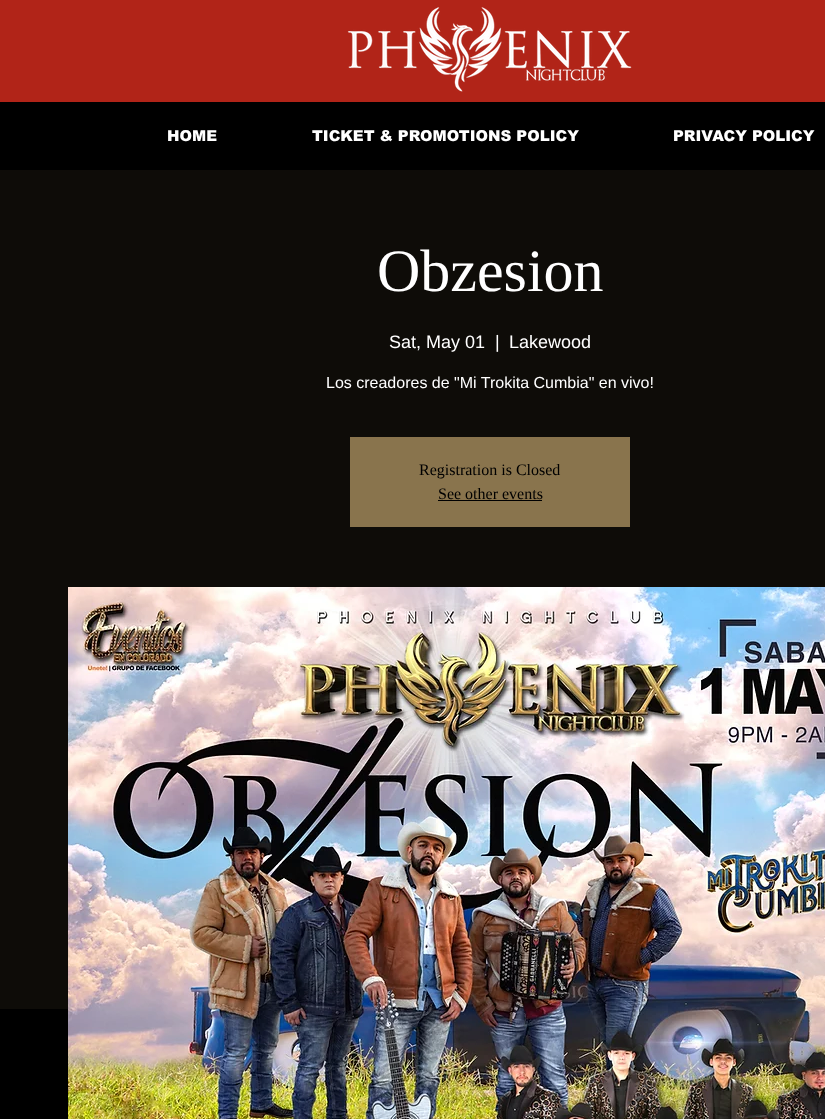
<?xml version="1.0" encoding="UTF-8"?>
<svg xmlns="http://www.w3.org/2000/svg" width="825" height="1119">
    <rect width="100%" height="100%" fill="#000000"/>
    <rect x="0" y="0" width="825" height="102" fill="#B12418"/>
    <image x="347" y="7" width="285" height="85" href="img_01.png"/>
    <text x="167" y="141" font-family="arial" font-size="15" font-weight="900" fill="#FFFFFF">HOME</text>
    <text x="312" y="141" font-family="arial" font-size="15" font-weight="900" fill="#FFFFFF">TICKET &amp; PROMOTIONS POLICY</text>
    <text x="673" y="141" font-family="arial" font-size="15" font-weight="900" fill="#FFFFFF">PRIVACY POLICY</text>
    <rect x="0" y="170" width="825" height="839" fill="#0E0C08"/>
    <text x="377" y="291" font-family="Liberation Serif" font-size="60" fill="#FFFFFF">Obzesion</text>
    <text x="389" y="348" font-family="Liberation Sans" font-size="18" fill="#FFFFFF">Sat, May 01</text>
    <text x="495" y="348" font-family="Liberation Sans" font-size="18" fill="#FFFFFF">|</text>
    <text x="509" y="348" font-family="Liberation Sans" font-size="18" fill="#FFFFFF">Lakewood</text>
    <text x="326" y="388" font-family="Liberation Sans" font-size="16" fill="#FFFFFF">Los creadores de "Mi Trokita Cumbia" en vivo!</text>
    <rect x="350" y="437" width="280" height="90" fill="#89744D"/>
    <text x="419" y="475" font-family="Liberation Serif" font-size="16" fill="#000000">Registration is Closed</text>
    <text x="438" y="499" font-family="Liberation Serif" font-size="16" fill="#000000">See other events</text>
    <rect x="438" y="500" width="104" height="1" fill="#000000"/>
    <image x="68" y="587" width="757" height="532" href="img_02.png"/>
</svg>
